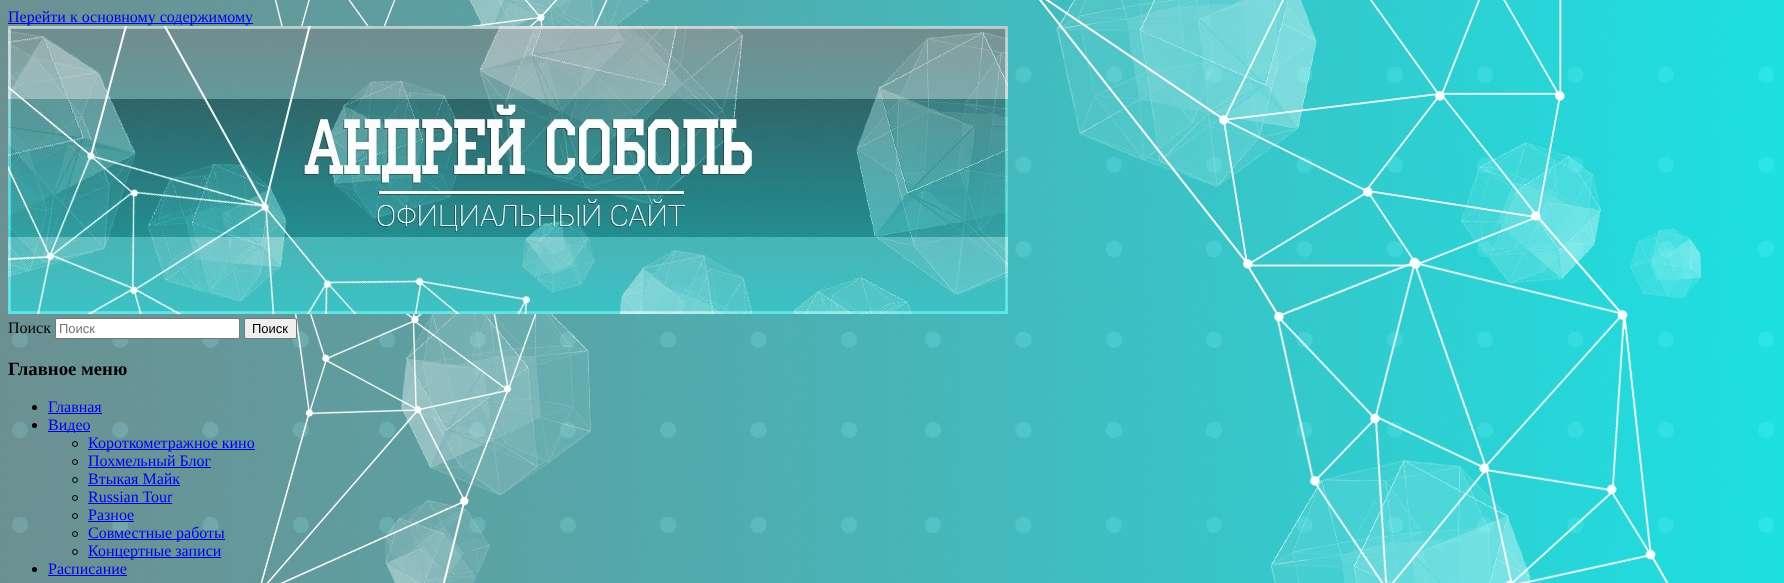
<?xml version="1.0" encoding="UTF-8"?>
<svg xmlns="http://www.w3.org/2000/svg" width="1784" height="583">
    <rect width="100%" height="100%" fill="#FFFFFF"/>
    <image x="0" y="0" width="1784" height="583" href="img_01.png"/>
    <rect x="8" y="23" width="245" height="1" fill="#0000EE"/>
    <text x="8" y="22" font-family="Liberation Serif" font-size="16" fill="#0000EE">Перейти к основному содержимому</text>
    <image x="8" y="26" width="1000" height="288" href="img_02.png"/>
    <text x="8" y="333" font-family="Liberation Serif" font-size="16" fill="#000000">Поиск</text>
    <rect x="55.5" y="318.5" width="184" height="20" rx="1.5" fill="#FFFFFF" stroke="#767676"/>
    <text x="59" y="333" font-family="Liberation Sans" font-size="13" fill="#757575">Поиск</text>
    <rect x="244.5" y="318.5" width="52" height="20" rx="1.5" fill="#EFEFEF" stroke="#767676"/>
    <text x="252" y="333" font-family="Liberation Sans" font-size="13" fill="#000000">Поиск</text>
    <text x="8" y="375" font-family="Liberation Serif" font-size="18.75" font-weight="700" fill="#000000">Главное меню</text>
    <circle cx="34.5" cy="407.5" r="2.5" fill="#000000"/>
    <text x="48" y="412" font-family="Liberation Serif" font-size="16" fill="#0000EE">Главная</text>
    <rect x="48" y="413" width="54" height="1" fill="#0000EE"/>
    <circle cx="34.5" cy="425.5" r="2.5" fill="#000000"/>
    <rect x="48" y="431" width="42" height="1" fill="#0000EE"/>
    <text x="48" y="430" font-family="Liberation Serif" font-size="16" fill="#0000EE">Видео</text>
    <circle cx="75" cy="444" r="2.5" fill="none" stroke="#000000"/>
    <rect x="88" y="449" width="167" height="1" fill="#0000EE"/>
    <text x="88" y="448" font-family="Liberation Serif" font-size="16" fill="#0000EE">Короткометражное кино</text>
    <circle cx="75" cy="462" r="2.5" fill="none" stroke="#000000"/>
    <text x="88" y="466" font-family="Liberation Serif" font-size="16" fill="#0000EE">Похмельный Блог</text>
    <rect x="88" y="467" width="123" height="1" fill="#0000EE"/>
    <circle cx="75" cy="480" r="2.5" fill="none" stroke="#000000"/>
    <text x="88" y="484" font-family="Liberation Serif" font-size="16" fill="#0000EE">Втыкая Майк</text>
    <rect x="88" y="485" width="92" height="1" fill="#0000EE"/>
    <circle cx="75" cy="498" r="2.5" fill="none" stroke="#000000"/>
    <text x="88" y="502" font-family="Liberation Serif" font-size="16" fill="#0000EE">Russian Tour</text>
    <rect x="88" y="503" width="84" height="1" fill="#0000EE"/>
    <circle cx="75" cy="516" r="2.5" fill="none" stroke="#000000"/>
    <text x="88" y="520" font-family="Liberation Serif" font-size="16" fill="#0000EE">Разное</text>
    <rect x="88" y="521" width="46" height="1" fill="#0000EE"/>
    <circle cx="75" cy="534" r="2.5" fill="none" stroke="#000000"/>
    <rect x="88" y="539" width="137" height="1" fill="#0000EE"/>
    <text x="88" y="538" font-family="Liberation Serif" font-size="16" fill="#0000EE">Совместные работы</text>
    <circle cx="75" cy="552" r="2.5" fill="none" stroke="#000000"/>
    <rect x="88" y="557" width="133" height="1" fill="#0000EE"/>
    <text x="88" y="556" font-family="Liberation Serif" font-size="16" fill="#0000EE">Концертные записи</text>
    <circle cx="34.5" cy="569.5" r="2.5" fill="#000000"/>
    <text x="48" y="574" font-family="Liberation Serif" font-size="16" fill="#0000EE">Расписание</text>
    <rect x="48" y="575" width="79" height="1" fill="#0000EE"/>
</svg>
